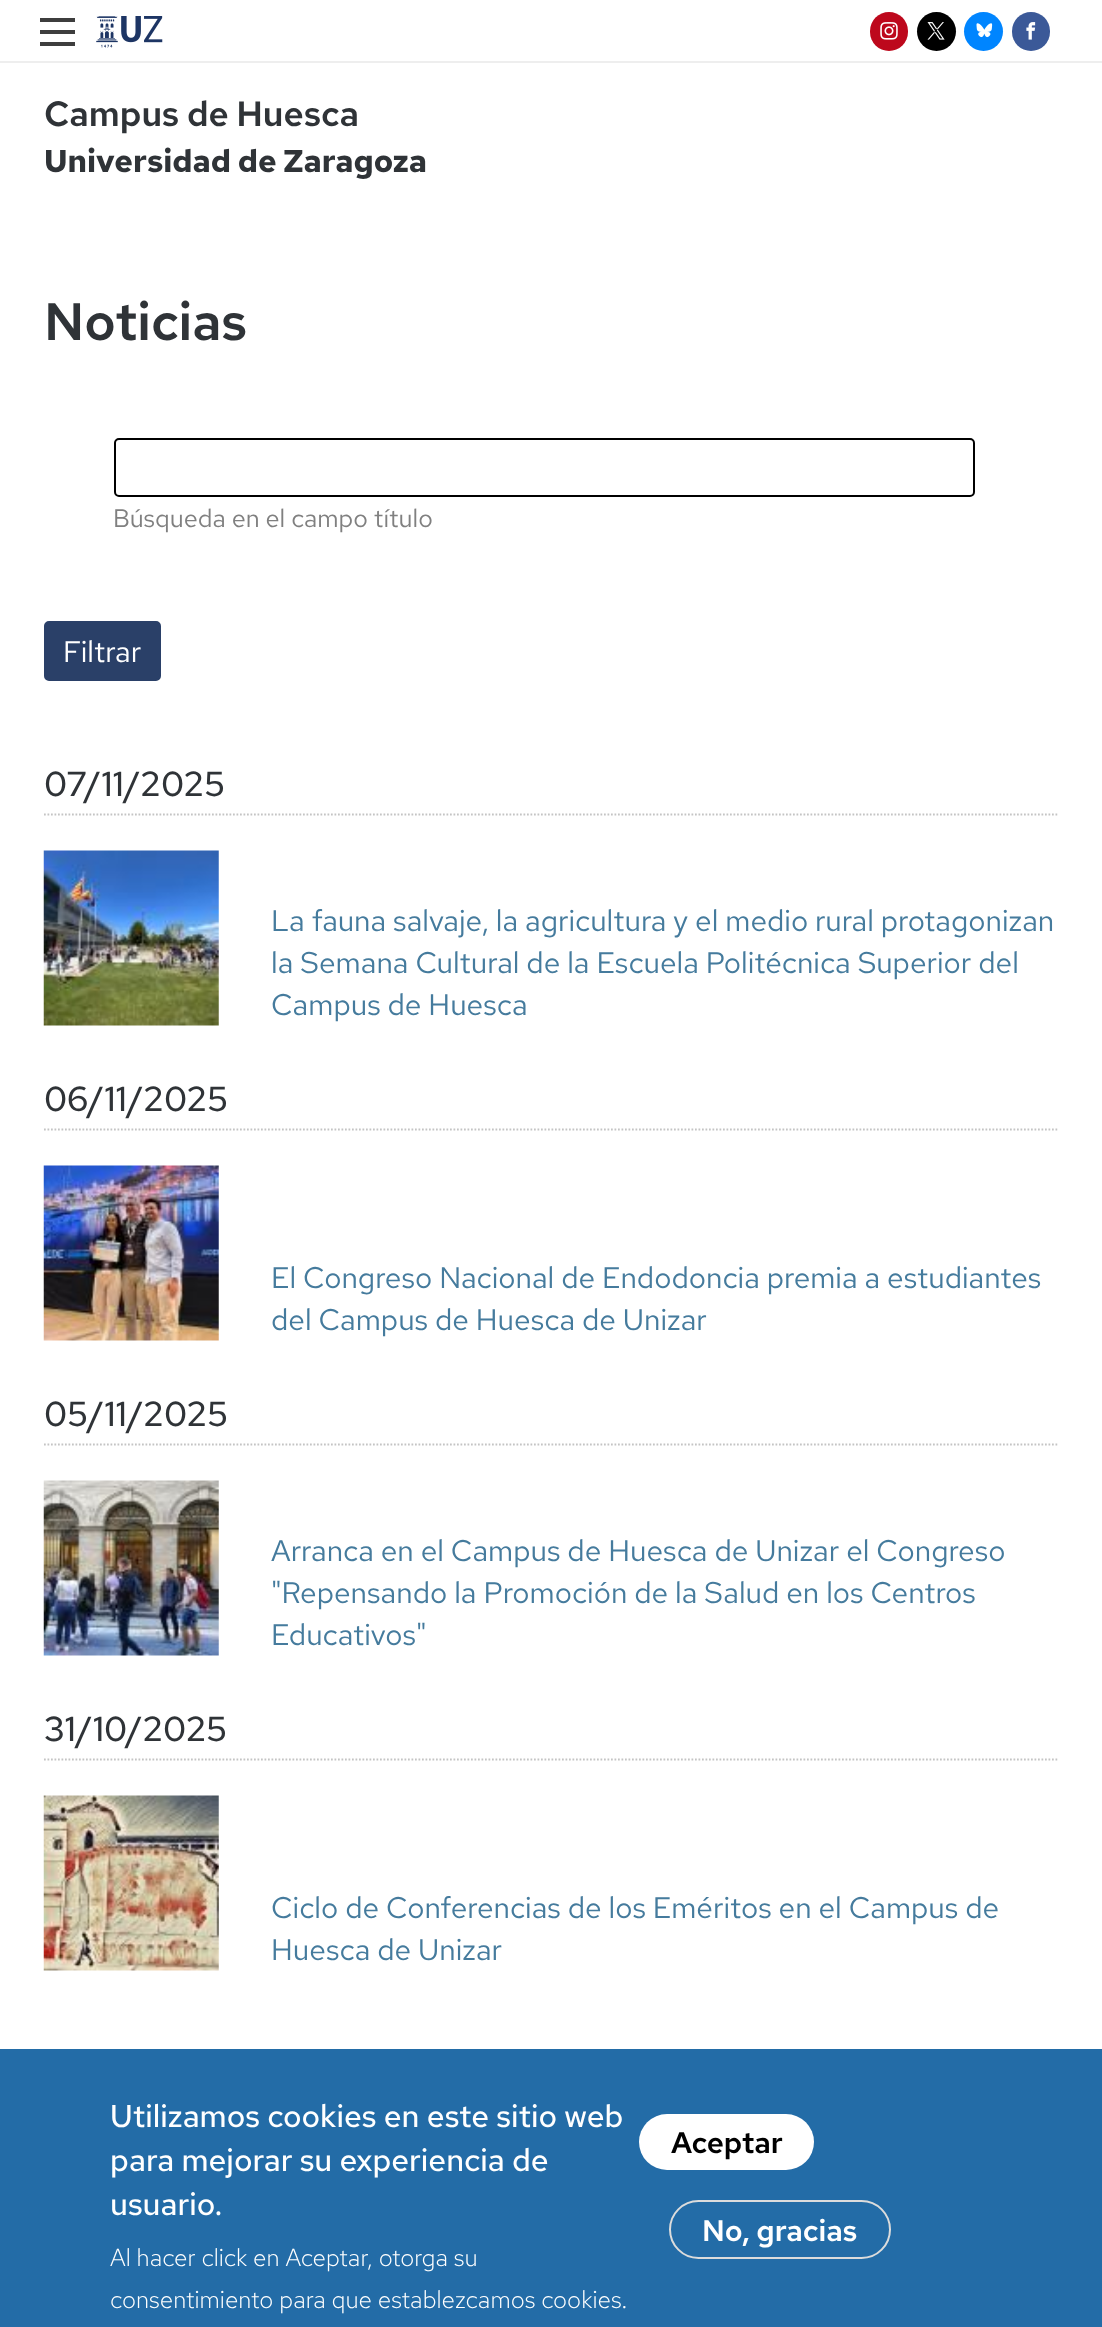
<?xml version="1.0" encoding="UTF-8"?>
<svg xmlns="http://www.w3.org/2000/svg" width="1102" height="2327">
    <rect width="100%" height="100%" fill="#FFFFFF"/>
    <rect x="0" y="61" width="1102" height="2" fill="#EEEEEE"/>
    <rect x="40" y="30" width="35" height="4" fill="#3E3E3E"/>
    <rect x="40" y="18" width="35" height="4" fill="#3E3E3E"/>
    <rect x="40" y="42" width="35" height="4" fill="#3E3E3E"/>
    <image x="96" y="16" width="67" height="32" href="img_01.png"/>
    <rect x="870" y="12" width="38" height="39" rx="19" fill="#BD081C"/>
    <image x="880" y="22" width="18" height="18" href="img_02.png"/>
    <circle cx="936.5" cy="31.5" r="19.5" fill="#000000"/>
    <image x="927" y="22" width="18" height="18" href="img_03.png"/>
    <circle cx="983.5" cy="31.5" r="19.5" fill="#0085FF"/>
    <image x="976" y="23" width="17" height="15" href="img_04.png"/>
    <rect x="1012" y="12" width="38" height="39" rx="19" fill="#3B5998"/>
    <image x="1026" y="22" width="10" height="18" href="img_05.png"/>
    <text x="44" y="126" font-family="Red Hat Text" font-size="35" font-weight="600" fill="#2F3337">Campus de Huesca</text>
    <text x="44" y="172" font-family="Red Hat Text" font-size="31.5" font-weight="700" fill="#2F3337">Universidad de Zaragoza</text>
    <text x="44" y="340" font-family="Red Hat Text" font-size="52.5" font-weight="600" fill="#2F3337">Noticias</text>
    <rect x="115" y="439" width="859" height="57" rx="4" fill="none" stroke="#000000" stroke-width="2"/>
    <text x="113" y="527" font-family="Red Hat Text" font-size="25.25" fill="#808080">Búsqueda en el campo título</text>
    <rect x="45" y="622" width="115" height="58" rx="4" fill="#2A4068" stroke="#2A4068" stroke-width="2"/>
    <text x="63" y="662" font-family="Red Hat Text" font-size="29.75" fill="#FFFFFF">Filtrar</text>
    <path d="M 44 814.5 H 1059" fill="none" stroke="#C4C4C4" stroke-width="1.8" stroke-dasharray="1.75 1.75"/>
    <text x="44" y="796" font-family="Red Hat Text" font-size="34.75" font-weight="500" fill="#2F3337">07/11/2025</text>
    <image x="43" y="850" width="176" height="176" href="img_06.png"/>
    <text font-family="Red Hat Text" font-size="29.75" fill="#457B9D">
        <tspan x="271" y="931">La fauna salvaje, la agricultura y el medio rural protagonizan</tspan>
        <tspan x="271" y="973">la Semana Cultural de la Escuela Politécnica Superior del</tspan>
        <tspan x="271" y="1015">Campus de Huesca</tspan>
    </text>
    <path d="M 44 1129.5 H 1059" fill="none" stroke="#C4C4C4" stroke-width="1.8" stroke-dasharray="1.75 1.75"/>
    <text x="44" y="1111" font-family="Red Hat Text" font-size="34.75" font-weight="500" fill="#2F3337">06/11/2025</text>
    <image x="43" y="1165" width="176" height="176" href="img_07.png"/>
    <text font-family="Red Hat Text" font-size="29.75" fill="#457B9D">
        <tspan x="271" y="1288">El Congreso Nacional de Endodoncia premia a estudiantes</tspan>
        <tspan x="271" y="1330">del Campus de Huesca de Unizar</tspan>
    </text>
    <path d="M 44 1444.5 H 1059" fill="none" stroke="#C4C4C4" stroke-width="1.8" stroke-dasharray="1.75 1.75"/>
    <text x="44" y="1426" font-family="Red Hat Text" font-size="34.75" font-weight="500" fill="#2F3337">05/11/2025</text>
    <image x="43" y="1480" width="176" height="176" href="img_08.png"/>
    <text font-family="Red Hat Text" font-size="29.75" fill="#457B9D">
        <tspan x="271" y="1561">Arranca en el Campus de Huesca de Unizar el Congreso</tspan>
        <tspan x="271" y="1603">"Repensando la Promoción de la Salud en los Centros</tspan>
        <tspan x="271" y="1645">Educativos"</tspan>
    </text>
    <path d="M 44 1759.5 H 1059" fill="none" stroke="#C4C4C4" stroke-width="1.8" stroke-dasharray="1.75 1.75"/>
    <text x="44" y="1741" font-family="Red Hat Text" font-size="34.75" font-weight="500" fill="#2F3337">31/10/2025</text>
    <image x="43" y="1795" width="176" height="176" href="img_09.png"/>
    <text font-family="Red Hat Text" font-size="29.75" fill="#457B9D">
        <tspan x="271" y="1918">Ciclo de Conferencias de los Eméritos en el Campus de</tspan>
        <tspan x="271" y="1960">Huesca de Unizar</tspan>
    </text>
    <rect x="0" y="2049" width="1102" height="278" fill="#236CA7"/>
    <text font-family="Red Hat Text" font-size="31.5" font-weight="500" fill="#FFFFFF">
        <tspan x="110" y="2127">Utilizamos cookies en este sitio web</tspan>
        <tspan x="110" y="2171">para mejorar su experiencia de</tspan>
        <tspan x="110" y="2215">usuario.</tspan>
    </text>
    <text font-family="Red Hat Text" font-size="24.5" font-weight="300" fill="#FFFFFF">
        <tspan x="110" y="2266">Al hacer click en Aceptar, otorga su</tspan>
        <tspan x="110" y="2308">consentimiento para que establezcamos cookies.</tspan>
    </text>
    <rect x="639" y="2114" width="175" height="56" rx="28" fill="#FFFFFF"/>
    <text x="671" y="2153" font-family="Red Hat Text" font-size="29.75" font-weight="600" fill="#000000">Aceptar</text>
    <rect x="670" y="2201" width="220" height="57" rx="28.5" fill="none" stroke="#DCDCDC" stroke-width="2"/>
    <text x="702" y="2241" font-family="Red Hat Text" font-size="29.75" font-weight="600" fill="#FFFFFF">No, gracias</text>
</svg>
